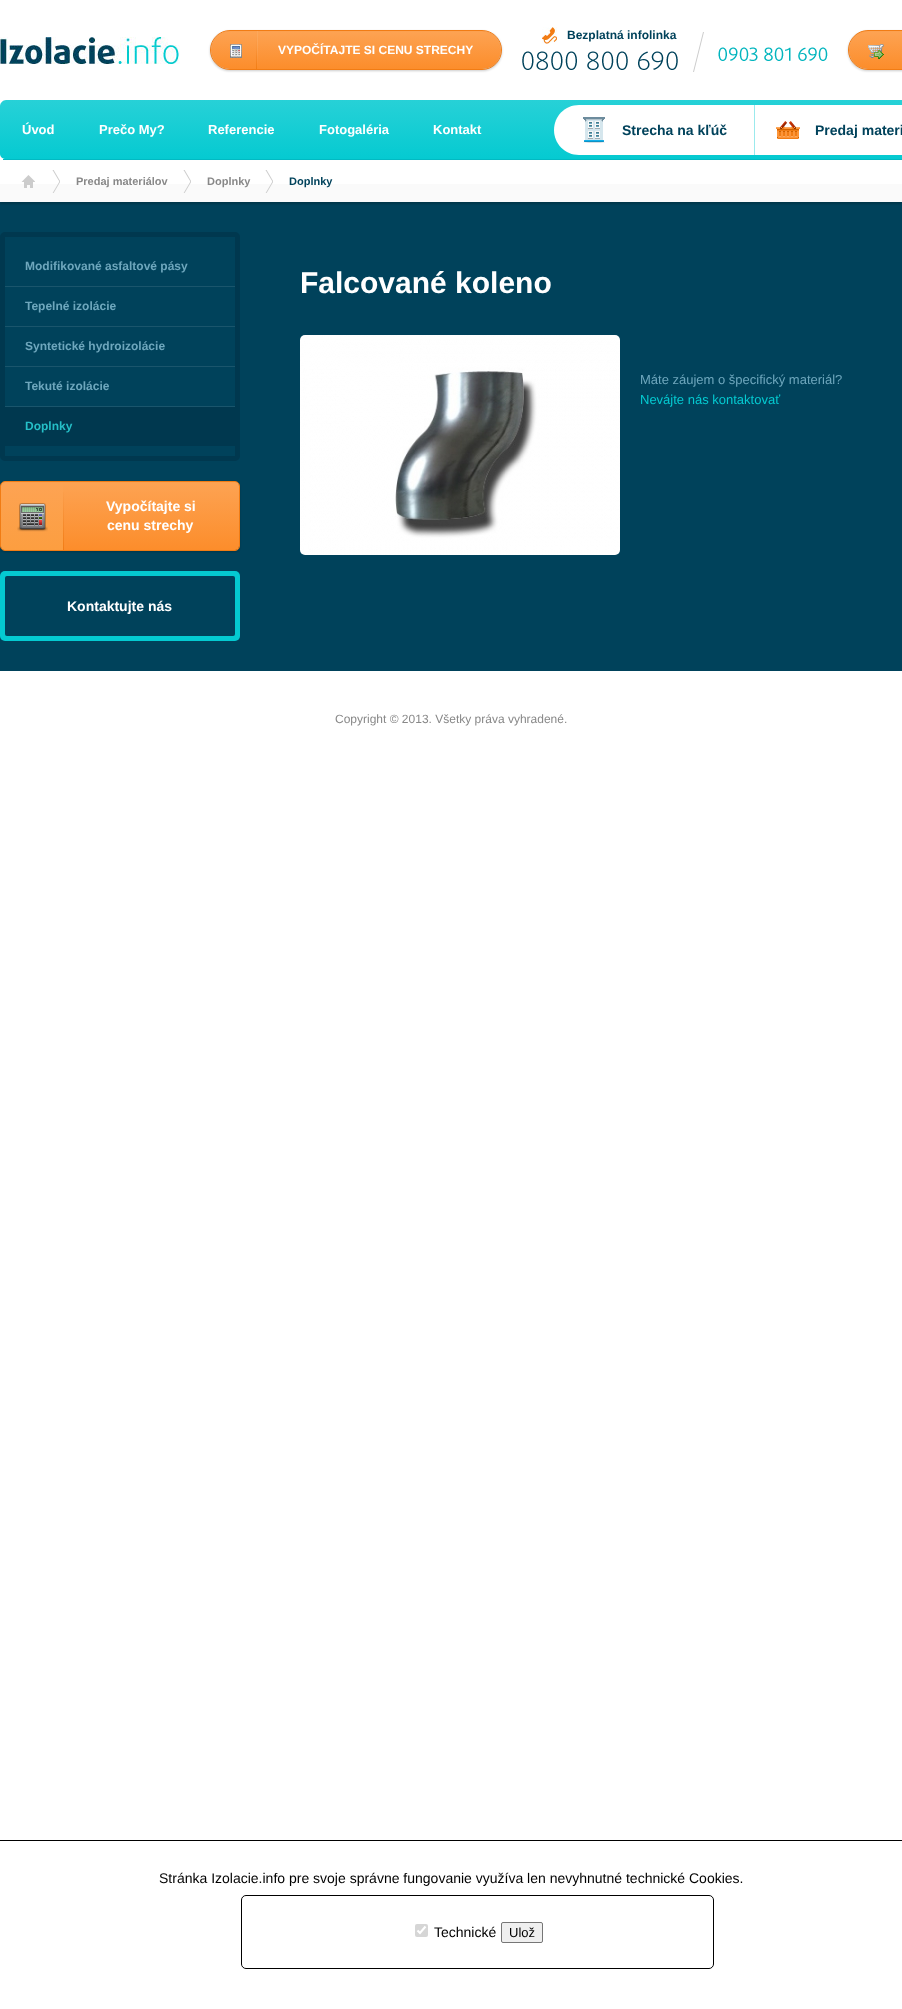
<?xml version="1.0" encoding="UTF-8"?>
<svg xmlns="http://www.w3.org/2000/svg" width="902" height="2009">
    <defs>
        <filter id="blur1" x="-50%" y="-200%" width="200%" height="500%"><feGaussianBlur stdDeviation="1"/></filter>
        <linearGradient id="g1" gradientUnits="userSpaceOnUse" x1="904" y1="31" x2="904" y2="69"><stop offset="0" stop-color="#FDA353"/><stop offset="1" stop-color="#FC8D2B"/></linearGradient>
        <linearGradient id="g2" gradientUnits="userSpaceOnUse" x1="356" y1="31" x2="356" y2="69"><stop offset="0" stop-color="#FDA353"/><stop offset="1" stop-color="#FC8D2B"/></linearGradient>
        <linearGradient id="g3" gradientUnits="userSpaceOnUse" x1="480" y1="100" x2="480" y2="159"><stop offset="0" stop-color="#27D1D7"/><stop offset="1" stop-color="#05CAD1"/></linearGradient>
        <clipPath id="clip1"><path d="M 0 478 H 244 V 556 H 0 Z M 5 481 H 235 C 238 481 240 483 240 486 V 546 C 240 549 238 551 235 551 H 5 C 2 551 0 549 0 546 V 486 C 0 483 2 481 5 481 Z" clip-rule="evenodd"/></clipPath>
        <linearGradient id="g4" gradientUnits="userSpaceOnUse" x1="120" y1="482" x2="120" y2="550"><stop offset="0" stop-color="#FDA353"/><stop offset="1" stop-color="#FC8D2B"/></linearGradient>
        <linearGradient id="g5" gradientUnits="userSpaceOnUse" x1="32" y1="483" x2="32" y2="550"><stop offset="0" stop-color="#FDA353"/><stop offset="1" stop-color="#FC9E40"/></linearGradient>
        <linearGradient id="g6" gradientUnits="userSpaceOnUse" x1="63" y1="483" x2="64" y2="550"><stop offset="0" stop-color="#FDA353"/><stop offset="1" stop-color="#F17C15"/></linearGradient>
    </defs>
    <rect width="100%" height="100%" fill="#FFFFFF"/>
    <rect x="0" y="202" width="902" height="469" fill="#00425B"/>
    <rect x="0" y="2" width="902" height="202" fill="#000000" fill-opacity="0.2" filter="url(#blur1)"/>
    <rect x="0" y="0" width="902" height="184" fill="#FFFFFF"/>
    <rect x="0" y="184" width="902" height="18" fill="#FAFAFA"/>
    <image x="0" y="37" width="180" height="27" href="img_01.png"/>
    <image x="542" y="27" width="15" height="17" href="img_02.png"/>
    <text x="567" y="39" font-family="Liberation Sans" font-size="12" font-weight="700" fill="#00425B">Bezplatná infolinka</text>
    <image x="522" y="51" width="156" height="19" href="img_03.png"/>
    <image x="693" y="32" width="135" height="40" href="img_04.png"/>
    <rect x="848" y="31" width="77" height="40" rx="20" fill="#000000" fill-opacity="0.2" filter="url(#blur1)"/>
    <rect x="849" y="31" width="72" height="38" rx="19" fill="url(#g1)"/>
    <path d="M 868 32 H 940 C 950 32 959 41 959 51 C 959 41 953 33 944 31 H 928 H 864 C 855 33 849 41 849 51 C 849 41 858 32 868 32 Z" fill="#FCA150"/>
    <rect x="848.5" y="30.5" width="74" height="39" rx="19.5" fill="none" stroke="#F17C14"/>
    <image x="868" y="44" width="16" height="15" href="img_05.png"/>
    <rect x="210" y="31" width="292" height="40" rx="20" fill="#000000" fill-opacity="0.2" filter="url(#blur1)"/>
    <rect x="211" y="31" width="290" height="38" rx="19" fill="url(#g2)"/>
    <path d="M 230 32 H 482 C 492 32 501 41 501 51 C 501 40 493 31 482 31 H 230 C 219 31 211 40 211 51 C 211 41 220 32 230 32 Z" fill="#FCA150"/>
    <rect x="210.5" y="30.5" width="291" height="39" rx="19.5" fill="none" stroke="#F17C14"/>
    <image x="230" y="44" width="12" height="14" href="img_06.png"/>
    <image x="256" y="31" width="2" height="38" href="img_07.png"/>
    <text x="278" y="54" font-family="Liberation Sans" font-size="12" font-weight="700" fill="#FFFFFF">VYPOČÍTAJTE SI CENU STRECHY</text>
    <path d="M 6 100 H 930 C 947 100 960 113 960 130 C 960 146 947 159 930 159 H 6 C 3 159 0 157 0 154 V 106 C 0 103 3 100 6 100 Z" fill="url(#g3)"/>
    <rect x="3" y="159" width="899" height="1" fill="#02B9C2"/>
    <text x="22" y="134" font-family="Liberation Sans" font-size="13" font-weight="700" fill="#FFFFFF">Úvod</text>
    <text x="99" y="134" font-family="Liberation Sans" font-size="13" font-weight="700" fill="#FFFFFF">Prečo My?</text>
    <text x="208" y="134" font-family="Liberation Sans" font-size="13" font-weight="700" fill="#FFFFFF">Referencie</text>
    <text x="319" y="134" font-family="Liberation Sans" font-size="13" font-weight="700" fill="#FFFFFF">Fotogaléria</text>
    <text x="433" y="134" font-family="Liberation Sans" font-size="13" font-weight="700" fill="#FFFFFF">Kontakt</text>
    <path d="M 579 105 H 755 V 155 H 579 C 565 155 554 144 554 130 C 554 116 565 105 579 105 Z" fill="#FFFFFF"/>
    <image x="583" y="117" width="22" height="26" href="img_08.png"/>
    <rect x="754" y="105" width="1" height="50" fill="#9BEAED"/>
    <text x="622" y="135" font-family="Liberation Sans" font-size="14" font-weight="700" fill="#00425B">Strecha na kľúč</text>
    <rect x="755" y="105" width="147" height="50" fill="#FFFFFF"/>
    <image x="776" y="121" width="24" height="18" href="img_09.png"/>
    <text x="815" y="135" font-family="Liberation Sans" font-size="14" font-weight="700" fill="#00425B">Predaj materi</text>
    <image x="21" y="175" width="14" height="13" href="img_10.png"/>
    <image x="52" y="170" width="8" height="23" href="img_11.png"/>
    <text x="76" y="185" font-family="Liberation Sans" font-size="11" font-weight="700" fill="#888888">Predaj materiálov</text>
    <image x="183" y="170" width="8" height="23" href="img_11.png"/>
    <text x="207" y="185" font-family="Liberation Sans" font-size="11" font-weight="700" fill="#888888">Doplnky</text>
    <image x="265" y="170" width="8" height="23" href="img_11.png"/>
    <text x="289" y="185" font-family="Liberation Sans" font-size="11" font-weight="700" fill="#00425B">Doplnky</text>
    <rect x="2.5" y="234.5" width="235" height="224" rx="2.5" fill="none" stroke="#00384F" stroke-width="5"/>
    <rect x="5" y="286" width="230" height="1" fill="#1A556C"/>
    <text x="25" y="270" font-family="Liberation Sans" font-size="12" font-weight="700" fill="#6EA7BD">Modifikované asfaltové pásy</text>
    <rect x="5" y="326" width="230" height="1" fill="#1A556C"/>
    <text x="25" y="310" font-family="Liberation Sans" font-size="12" font-weight="700" fill="#6EA7BD">Tepelné izolácie</text>
    <rect x="5" y="366" width="230" height="1" fill="#1A556C"/>
    <text x="25" y="350" font-family="Liberation Sans" font-size="12" font-weight="700" fill="#6EA7BD">Syntetické hydroizolácie</text>
    <rect x="5" y="406" width="230" height="1" fill="#1A556C"/>
    <text x="25" y="390" font-family="Liberation Sans" font-size="12" font-weight="700" fill="#6EA7BD">Tekuté izolácie</text>
    <rect x="5" y="407" width="230" height="39" fill="#00384F"/>
    <text x="25" y="430" font-family="Liberation Sans" font-size="12" font-weight="700" fill="#25BFC7">Doplnky</text>
    <g clip-path="url(#clip1)">
        <rect x="0" y="482" width="240" height="70" rx="5" fill="#000000" fill-opacity="0.2" filter="url(#blur1)"/>
    </g>
    <rect x="1" y="482" width="238" height="68" rx="4" fill="url(#g4)"/>
    <path d="M 5 483 H 235 C 237 483 239 485 239 487 C 239 484 238 482 235 482 H 5 C 2 482 1 484 1 487 C 1 485 3 483 5 483 Z" fill="#FCA150"/>
    <rect x="0.5" y="481.5" width="239" height="69" rx="4.5" fill="none" stroke="#F17C14"/>
    <path d="M 6 483 H 63 V 550 H 6 C 3 550 1 548 1 545 V 488 C 1 485 3 483 6 483 Z" fill="url(#g5)"/>
    <image x="17" y="503" width="31" height="29" href="img_12.png"/>
    <rect x="63" y="492" width="1" height="58" fill="url(#g6)"/>
    <text x="106" y="511" font-family="Liberation Sans" font-size="14" font-weight="700" fill="#FFFFFF">Vypočítajte si</text>
    <text x="107" y="530" font-family="Liberation Sans" font-size="14" font-weight="700" fill="#FFFFFF">cenu strechy</text>
    <rect x="0" y="571" width="240" height="70" rx="5" fill="#04CAD1"/>
    <rect x="5" y="576" width="230" height="60" rx="2" fill="#00425B"/>
    <text x="67" y="611" font-family="Liberation Sans" font-size="14" font-weight="700" fill="#FFFFFF">Kontaktujte nás</text>
    <text x="300" y="293" font-family="Liberation Sans" font-size="30" font-weight="700" fill="#FFFFFF">Falcované koleno</text>
    <image x="300" y="335" width="320" height="220" href="img_13.png"/>
    <text x="640" y="384" font-family="Liberation Sans" font-size="13" fill="#6EA7BD">Máte záujem o špecifický materiál?</text>
    <text x="640" y="404" font-family="Liberation Sans" font-size="13" fill="#04CAD1">Nevájte nás kontaktovať</text>
    <text x="335" y="723" font-family="Liberation Sans" font-size="12" fill="#888888">Copyright © 2013. Všetky práva vyhradené.</text>
    <rect x="0" y="1840" width="902" height="1" fill="#000000"/>
    <text x="159" y="1883" font-family="Liberation Sans" font-size="14" fill="#000000">Stránka Izolacie.info pre svoje správne fungovanie využíva len nevyhnutné technické Cookies.</text>
    <rect x="241.5" y="1895.5" width="472" height="73" rx="4.5" fill="none" stroke="#000000"/>
    <rect x="415" y="1924" width="13" height="13" rx="2" fill="#D6D6D6"/>
    <path d="M 417.5 1930.5 L 420 1933 L 425.5 1926.5" fill="none" stroke="#FFFFFF" stroke-width="2.1"/>
    <text x="434" y="1937" font-family="Liberation Sans" font-size="14" fill="#000000">Technické</text>
    <rect x="501.5" y="1922.5" width="41" height="20" rx="1.5" fill="#EFEFEF" stroke="#767676"/>
    <text x="509" y="1937" font-family="Liberation Sans" font-size="13" fill="#000000">Ulož</text>
</svg>
